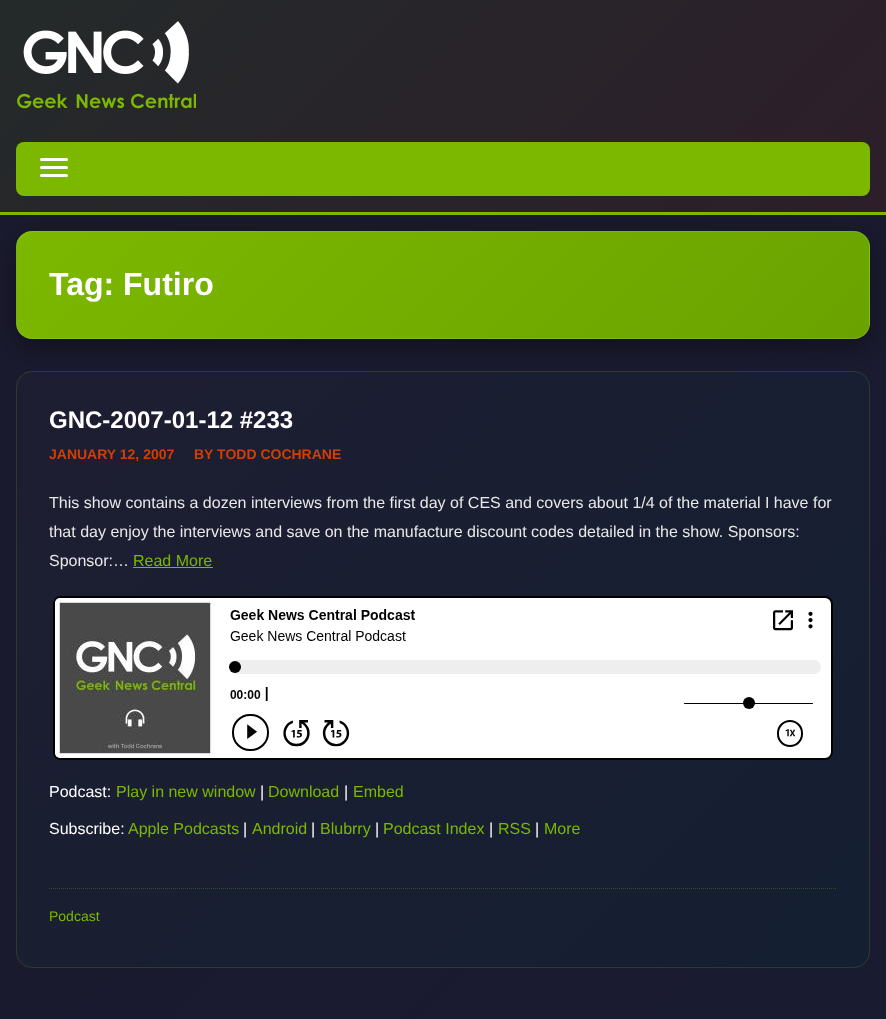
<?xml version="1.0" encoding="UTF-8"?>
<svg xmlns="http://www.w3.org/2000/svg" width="886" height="1019">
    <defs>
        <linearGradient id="g1" gradientUnits="userSpaceOnUse" x1="-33" y1="33" x2="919" y2="986"><stop offset="0" stop-color="#1A1A2E"/><stop offset="0.5" stop-color="#1A1A2F"/><stop offset="1" stop-color="#191B31"/></linearGradient>
        <filter id="blur1" x="-50%" y="-200%" width="200%" height="500%"><feGaussianBlur stdDeviation="12"/></filter>
        <linearGradient id="g2" gradientUnits="userSpaceOnUse" x1="169" y1="-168" x2="718" y2="381"><stop offset="0" stop-color="#242A2A"/><stop offset="1" stop-color="#2D1E2A"/></linearGradient>
        <clipPath id="clip1"><rect x="16" y="231" width="854" height="108" rx="16"/></clipPath>
        <linearGradient id="g3" gradientUnits="userSpaceOnUse" x1="203" y1="-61" x2="683" y2="419"><stop offset="0" stop-color="#7CB800"/><stop offset="1" stop-color="#6AA300"/></linearGradient>
        <linearGradient id="g4" gradientUnits="userSpaceOnUse" x1="-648" y1="45" x2="-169" y2="525"><stop offset="0" stop-color="#7CB800"/><stop offset="1" stop-color="#6AA300"/></linearGradient>
        <linearGradient id="g5" gradientUnits="userSpaceOnUse" x1="203" y1="45" x2="683" y2="525"><stop offset="0" stop-color="#7CB800"/><stop offset="1" stop-color="#6AA300"/></linearGradient>
        <linearGradient id="g6" gradientUnits="userSpaceOnUse" x1="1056" y1="45" x2="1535" y2="525"><stop offset="0" stop-color="#7CB800"/><stop offset="1" stop-color="#6AA300"/></linearGradient>
        <linearGradient id="g7" gradientUnits="userSpaceOnUse" x1="203" y1="151" x2="683" y2="631"><stop offset="0" stop-color="#7CB800"/><stop offset="1" stop-color="#6AA300"/></linearGradient>
        <clipPath id="clip2"><rect x="16" y="371" width="854" height="597" rx="16"/></clipPath>
        <linearGradient id="g8" gradientUnits="userSpaceOnUse" x1="81" y1="-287" x2="805" y2="436"><stop offset="0" stop-color="#1E1E32"/><stop offset="1" stop-color="#151F32"/></linearGradient>
        <linearGradient id="g9" gradientUnits="userSpaceOnUse" x1="-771" y1="308" x2="-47" y2="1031"><stop offset="0" stop-color="#1E1E32" stop-opacity="0.9"/><stop offset="1" stop-color="#142032" stop-opacity="0.9"/></linearGradient>
        <linearGradient id="g10" gradientUnits="userSpaceOnUse" x1="81" y1="308" x2="805" y2="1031"><stop offset="0" stop-color="#1E1E32" stop-opacity="0.9"/><stop offset="1" stop-color="#142032" stop-opacity="0.9"/></linearGradient>
        <linearGradient id="g11" gradientUnits="userSpaceOnUse" x1="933" y1="308" x2="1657" y2="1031"><stop offset="0" stop-color="#1E1E32" stop-opacity="0.9"/><stop offset="1" stop-color="#142032" stop-opacity="0.9"/></linearGradient>
        <linearGradient id="g12" gradientUnits="userSpaceOnUse" x1="81" y1="903" x2="805" y2="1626"><stop offset="0" stop-color="#1E1E32" stop-opacity="0.9"/><stop offset="1" stop-color="#142032" stop-opacity="0.9"/></linearGradient>
    </defs>
    <rect width="100%" height="100%" fill="#FFFFFF"/>
    <rect x="0" y="215" width="886" height="804" fill="url(#g1)"/>
    <rect x="16" y="239" width="854" height="108" rx="16" fill="#000000" fill-opacity="0.4" filter="url(#blur1)"/>
    <rect x="0" y="0" width="886" height="212" fill="url(#g2)"/>
    <rect x="0" y="212" width="886" height="3" fill="#7CB800"/>
    <image x="17" y="21" width="179" height="88" href="img_01.png"/>
    <rect x="16" y="142" width="854" height="54" rx="8" fill="#7CB800"/>
    <rect x="40" y="158" width="28" height="3" rx="1.5" fill="#FFFFFF"/>
    <rect x="40" y="166" width="28" height="3" rx="1.5" fill="#FFFFFF"/>
    <rect x="40" y="174" width="28" height="3" rx="1.5" fill="#FFFFFF"/>
    <g clip-path="url(#clip1)">
        <rect x="26" y="231" width="834" height="1" fill="url(#g3)"/>
        <rect x="16" y="241" width="1" height="88" fill="url(#g4)"/>
        <rect x="17" y="232" width="852" height="106" fill="url(#g5)"/>
        <rect x="869" y="241" width="1" height="88" fill="url(#g6)"/>
        <rect x="26" y="338" width="834" height="1" fill="url(#g7)"/>
    </g>
    <rect x="16.5" y="231.5" width="853" height="107" rx="15.5" fill="none" stroke="#FFFFFF" stroke-opacity="0.1"/>
    <text x="49" y="295" font-family="Liberation Sans" font-size="32" font-weight="700" fill="#FFFFFF">Tag: Futiro</text>
    <g clip-path="url(#clip2)">
        <rect x="26" y="371" width="834" height="1" fill="url(#g8)"/>
        <rect x="16" y="381" width="1" height="577" fill="url(#g9)"/>
        <rect x="17" y="372" width="852" height="595" fill="url(#g10)"/>
        <rect x="869" y="381" width="1" height="577" fill="url(#g11)"/>
        <rect x="26" y="967" width="834" height="1" fill="url(#g12)"/>
    </g>
    <rect x="16.5" y="371.5" width="853" height="596" rx="15.5" fill="none" stroke="#7CB800" stroke-opacity="0.2"/>
    <text x="49" y="428" font-family="Liberation Sans" font-size="24" font-weight="700" fill="#FFFFFF">GNC-2007-01-12 #233</text>
    <text x="49" y="459" font-family="Liberation Sans" font-size="14" font-weight="700" fill="#D43F00">JANUARY 12, 2007</text>
    <text x="194" y="459" font-family="Liberation Sans" font-size="14" font-weight="700" fill="#D43F00">BY TODD COCHRANE</text>
    <text font-family="Liberation Sans" font-size="16" fill="#E8E8E8">
        <tspan x="49" y="508">This show contains a dozen interviews from the first day of CES and covers about 1/4 of the material I have for</tspan>
        <tspan x="49" y="537">that day enjoy the interviews and save on the manufacture discount codes detailed in the show. Sponsors:</tspan>
        <tspan x="49" y="566">Sponsor:…</tspan>
    </text>
    <text x="133" y="566" font-family="Liberation Sans" font-size="16" fill="#7CB800">Read More</text>
    <rect x="133" y="567" width="80" height="1" fill="#7CB800"/>
    <image x="53" y="596" width="780" height="164" href="img_02.png"/>
    <text x="49" y="797" font-family="Liberation Sans" font-size="16" fill="#FFFFFF">Podcast:</text>
    <text x="116" y="797" font-family="Liberation Sans" font-size="16" fill="#7CB800">Play in new window</text>
    <text x="260" y="797" font-family="Liberation Sans" font-size="16" fill="#FFFFFF">|</text>
    <text x="268" y="797" font-family="Liberation Sans" font-size="16" fill="#7CB800">Download</text>
    <text x="344" y="797" font-family="Liberation Sans" font-size="16" fill="#FFFFFF">|</text>
    <text x="353" y="797" font-family="Liberation Sans" font-size="16" fill="#7CB800">Embed</text>
    <text x="49" y="834" font-family="Liberation Sans" font-size="16" fill="#FFFFFF">Subscribe:</text>
    <text x="128" y="834" font-family="Liberation Sans" font-size="16" fill="#7CB800">Apple Podcasts</text>
    <text x="243" y="834" font-family="Liberation Sans" font-size="16" fill="#FFFFFF">|</text>
    <text x="252" y="834" font-family="Liberation Sans" font-size="16" fill="#7CB800">Android</text>
    <text x="311" y="834" font-family="Liberation Sans" font-size="16" fill="#FFFFFF">|</text>
    <text x="320" y="834" font-family="Liberation Sans" font-size="16" fill="#7CB800">Blubrry</text>
    <text x="375" y="834" font-family="Liberation Sans" font-size="16" fill="#FFFFFF">|</text>
    <text x="383" y="834" font-family="Liberation Sans" font-size="16" fill="#7CB800">Podcast Index</text>
    <text x="489" y="834" font-family="Liberation Sans" font-size="16" fill="#FFFFFF">|</text>
    <text x="498" y="834" font-family="Liberation Sans" font-size="16" fill="#7CB800">RSS</text>
    <text x="535" y="834" font-family="Liberation Sans" font-size="16" fill="#FFFFFF">|</text>
    <text x="544" y="834" font-family="Liberation Sans" font-size="16" fill="#7CB800">More</text>
    <path d="M 49 888.5 H 837" fill="none" stroke="#7CB800" stroke-opacity="0.3" stroke-dasharray="1 1"/>
    <text x="49" y="921" font-family="Liberation Sans" font-size="14" fill="#7CB800">Podcast</text>
</svg>
